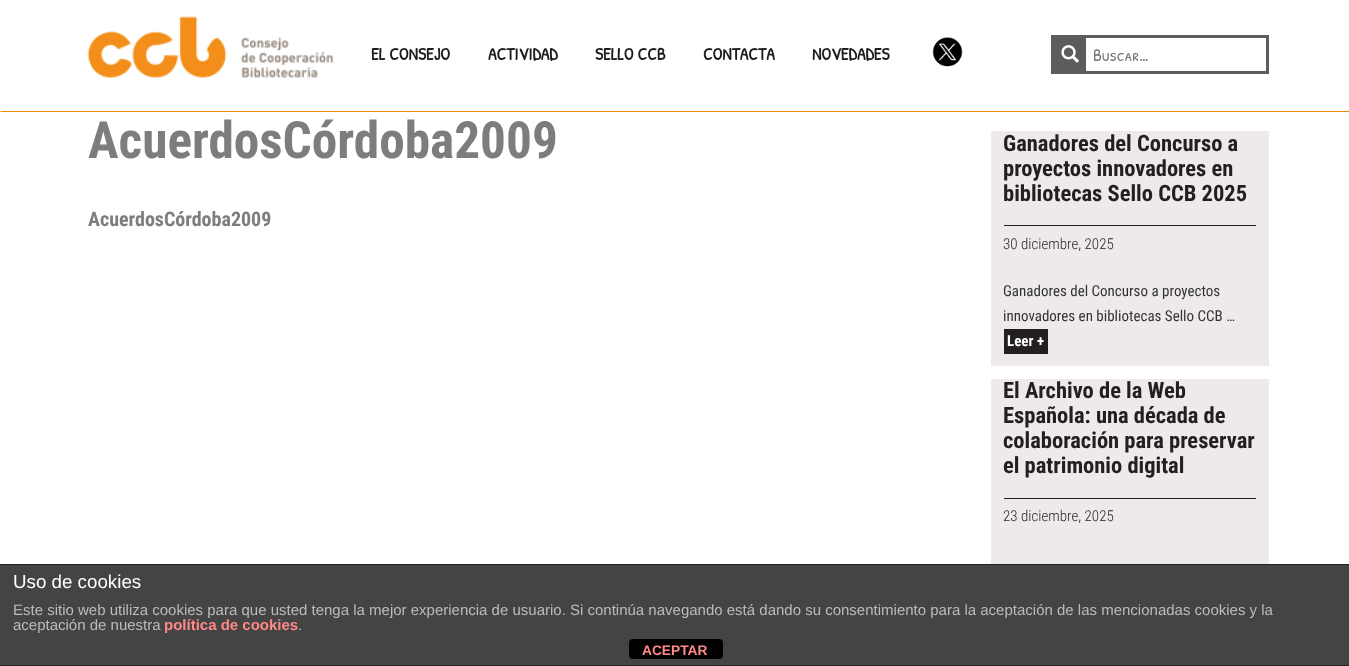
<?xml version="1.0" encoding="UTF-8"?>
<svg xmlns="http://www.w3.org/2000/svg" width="1349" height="666">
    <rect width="100%" height="100%" fill="#FFFFFF"/>
    <path d="M 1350 112 H 0 L 1 111 H 1349 Z" fill="#EE870C"/>
    <image x="87" y="16" width="247" height="62" href="img_01.png"/>
    <text x="371" y="60" font-family="Patrick Hand SC" font-size="17.5" font-weight="700" fill="#1D1D1B">EL CONSEJO</text>
    <text x="488" y="60" font-family="Patrick Hand SC" font-size="17.5" font-weight="700" fill="#1D1D1B">ACTIVIDAD</text>
    <text x="595" y="60" font-family="Patrick Hand SC" font-size="17.5" font-weight="700" fill="#1D1D1B">SELLO CCB</text>
    <text x="703" y="60" font-family="Patrick Hand SC" font-size="17.5" font-weight="700" fill="#1D1D1B">CONTACTA</text>
    <text x="812" y="60" font-family="Patrick Hand SC" font-size="17.5" font-weight="700" fill="#1D1D1B">NOVEDADES</text>
    <image x="932" y="37" width="31" height="30" href="img_02.png"/>
    <rect x="1052.5" y="36.5" width="215" height="36" fill="none" stroke="#5C5C5C" stroke-width="3"/>
    <rect x="1054" y="38" width="32" height="33" fill="#5C5C5C"/>
    <image x="1061" y="45" width="18" height="18" href="img_03.png"/>
    <text x="1093" y="61" font-family="Patrick Hand SC" font-size="17.5" fill="#757575">Buscar…</text>
    <text x="88" y="158" font-family="Roboto Condensed" font-size="51.25" font-weight="700" fill="#7D7D7D">AcuerdosCórdoba2009</text>
    <text x="88" y="226" font-family="Roboto Condensed" font-size="20" font-weight="700" fill="#7D7D7D">AcuerdosCórdoba2009</text>
    <rect x="991" y="131" width="278" height="235" fill="#EEEAEA"/>
    <rect x="1004" y="225" width="252" height="1" fill="#231F20"/>
    <text font-family="Roboto Condensed" font-size="22.5" font-weight="700" fill="#231F20">
        <tspan x="1003" y="151">Ganadores del Concurso a</tspan>
        <tspan x="1003" y="176">proyectos innovadores en</tspan>
        <tspan x="1003" y="201">bibliotecas Sello CCB 2025</tspan>
    </text>
    <text x="1003" y="249" font-family="Roboto Condensed" font-size="15" font-weight="300" fill="#231F20">30 diciembre, 2025</text>
    <text font-family="Roboto Condensed" font-size="15" fill="#333333">
        <tspan x="1003" y="296">Ganadores del Concurso a proyectos</tspan>
        <tspan x="1003" y="321">innovadores en bibliotecas Sello CCB …</tspan>
    </text>
    <rect x="1004" y="329" width="44" height="25" fill="#231F20"/>
    <text x="1007" y="346" font-family="Roboto Condensed" font-size="15" font-weight="700" fill="#FFFFFF">Leer +</text>
    <rect x="991" y="379" width="278" height="185" fill="#EEEAEA"/>
    <rect x="1004" y="498" width="252" height="1" fill="#231F20"/>
    <text font-family="Roboto Condensed" font-size="22.5" font-weight="700" fill="#231F20">
        <tspan x="1003" y="398">El Archivo de la Web</tspan>
        <tspan x="1003" y="423">Española: una década de</tspan>
        <tspan x="1003" y="448">colaboración para preservar</tspan>
        <tspan x="1003" y="473">el patrimonio digital</tspan>
    </text>
    <text x="1003" y="521" font-family="Roboto Condensed" font-size="15" font-weight="300" fill="#231F20">23 diciembre, 2025</text>
    <rect x="0" y="565" width="1349" height="100" fill="#444444"/>
    <rect x="0" y="564" width="1349" height="1" fill="#222222"/>
    <rect x="0" y="665" width="1349" height="1" fill="#222222"/>
    <text x="13" y="588" font-family="Liberation Sans" font-size="18.75" fill="#FFFFFF">Uso de cookies</text>
    <text font-family="Liberation Sans" font-size="15" fill="#BBBBBB">
        <tspan x="13" y="615">Este sitio web utiliza cookies para que usted tenga la mejor experiencia de usuario. Si continúa navegando está dando su consentimiento para la aceptación de las mencionadas cookies y la</tspan>
        <tspan x="13" y="630">aceptación de nuestra</tspan>
    </text>
    <text x="164" y="630" font-family="Liberation Sans" font-size="15" font-weight="700" fill="#FF8888">política de cookies</text>
    <text x="298" y="630" font-family="Liberation Sans" font-size="15" fill="#BBBBBB">.</text>
    <rect x="629" y="639" width="94" height="20" rx="4" fill="#000000"/>
    <text x="642" y="655" font-family="Liberation Sans" font-size="13.75" font-weight="700" fill="#FF8888">ACEPTAR</text>
</svg>
